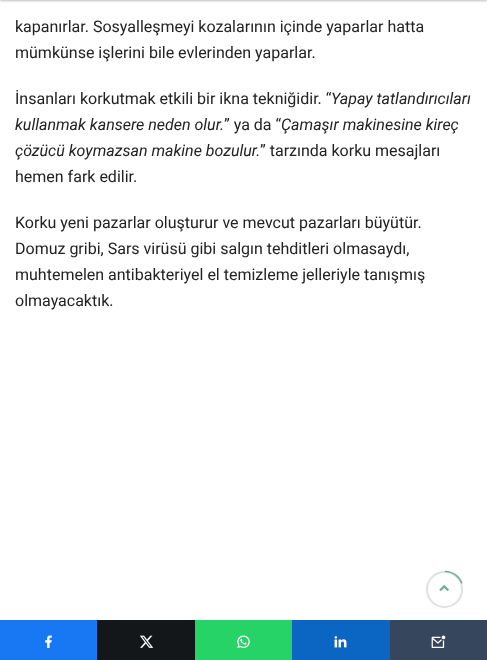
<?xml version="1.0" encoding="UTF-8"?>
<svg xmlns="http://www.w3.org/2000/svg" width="487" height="660">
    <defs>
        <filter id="blur1" x="-50%" y="-200%" width="200%" height="500%"><feGaussianBlur stdDeviation="1"/></filter>
    </defs>
    <rect width="100%" height="100%" fill="#FFFFFF"/>
    <rect x="0" y="-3" width="487" height="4" fill="#000000" fill-opacity="0.25" filter="url(#blur1)"/>
    <text font-family="Roboto" font-size="16" fill="#222222">
        <tspan x="15" y="32">kapanırlar. Sosyalleşmeyi kozalarının içinde yaparlar hatta</tspan>
        <tspan x="15" y="58">mümkünse işlerini bile evlerinden yaparlar.</tspan>
    </text>
    <text x="15" y="104" font-family="Roboto" font-size="16" fill="#222222">İnsanları korkutmak etkili bir ikna tekniğidir. “</text>
    <text x="331" y="104" font-family="Roboto" font-size="16" font-style="italic" fill="#222222">Yapay tatlandırıcıları</text>
    <text x="15" y="130" font-family="Roboto" font-size="16" font-style="italic" fill="#222222">kullanmak kansere neden olur.</text>
    <text x="224" y="130" font-family="Roboto" font-size="16" fill="#222222">” ya da “</text>
    <text x="281" y="130" font-family="Roboto" font-size="16" font-style="italic" fill="#222222">Çamaşır makinesine kireç</text>
    <text x="15" y="156" font-family="Roboto" font-size="16" font-style="italic" fill="#222222">çözücü koymazsan makine bozulur.</text>
    <text x="260" y="156" font-family="Roboto" font-size="16" fill="#222222">” tarzında korku mesajları</text>
    <text x="15" y="182" font-family="Roboto" font-size="16" fill="#222222">hemen fark edilir.</text>
    <text font-family="Roboto" font-size="16" fill="#222222">
        <tspan x="15" y="228">Korku yeni pazarlar oluşturur ve mevcut pazarları büyütür.</tspan>
        <tspan x="15" y="254">Domuz gribi, Sars virüsü gibi salgın tehditleri olmasaydı,</tspan>
        <tspan x="15" y="280">muhtemelen antibakteriyel el temizleme jelleriyle tanışmış</tspan>
        <tspan x="15" y="306">olmayacaktık.</tspan>
    </text>
    <rect x="0" y="620" width="97" height="40" fill="#1877F2"/>
    <image x="45" y="635" width="7" height="13" href="img_01.png"/>
    <rect x="97" y="620" width="98" height="40" fill="#14171A"/>
    <image x="139" y="635" width="15" height="13" href="img_02.png"/>
    <rect x="195" y="620" width="97" height="40" fill="#25D366"/>
    <image x="237" y="635" width="13" height="13" href="img_03.png"/>
    <rect x="292" y="620" width="98" height="40" fill="#0A66C2"/>
    <image x="334" y="636" width="13" height="12" href="img_04.png"/>
    <rect x="390" y="620" width="97" height="40" fill="#35465D"/>
    <image x="431" y="635" width="15" height="13" href="img_05.png"/>
    <circle cx="444.5" cy="589.5" r="17.5" fill="none" stroke="#DFE0E1" stroke-width="2"/>
    <path d="M 445 571.5 C 453 571.5 459.5 576.5 462 583.5" fill="none" stroke="#6EB29B" stroke-width="1.5"/>
    <image x="439" y="584" width="10" height="8" href="img_06.png"/>
</svg>
